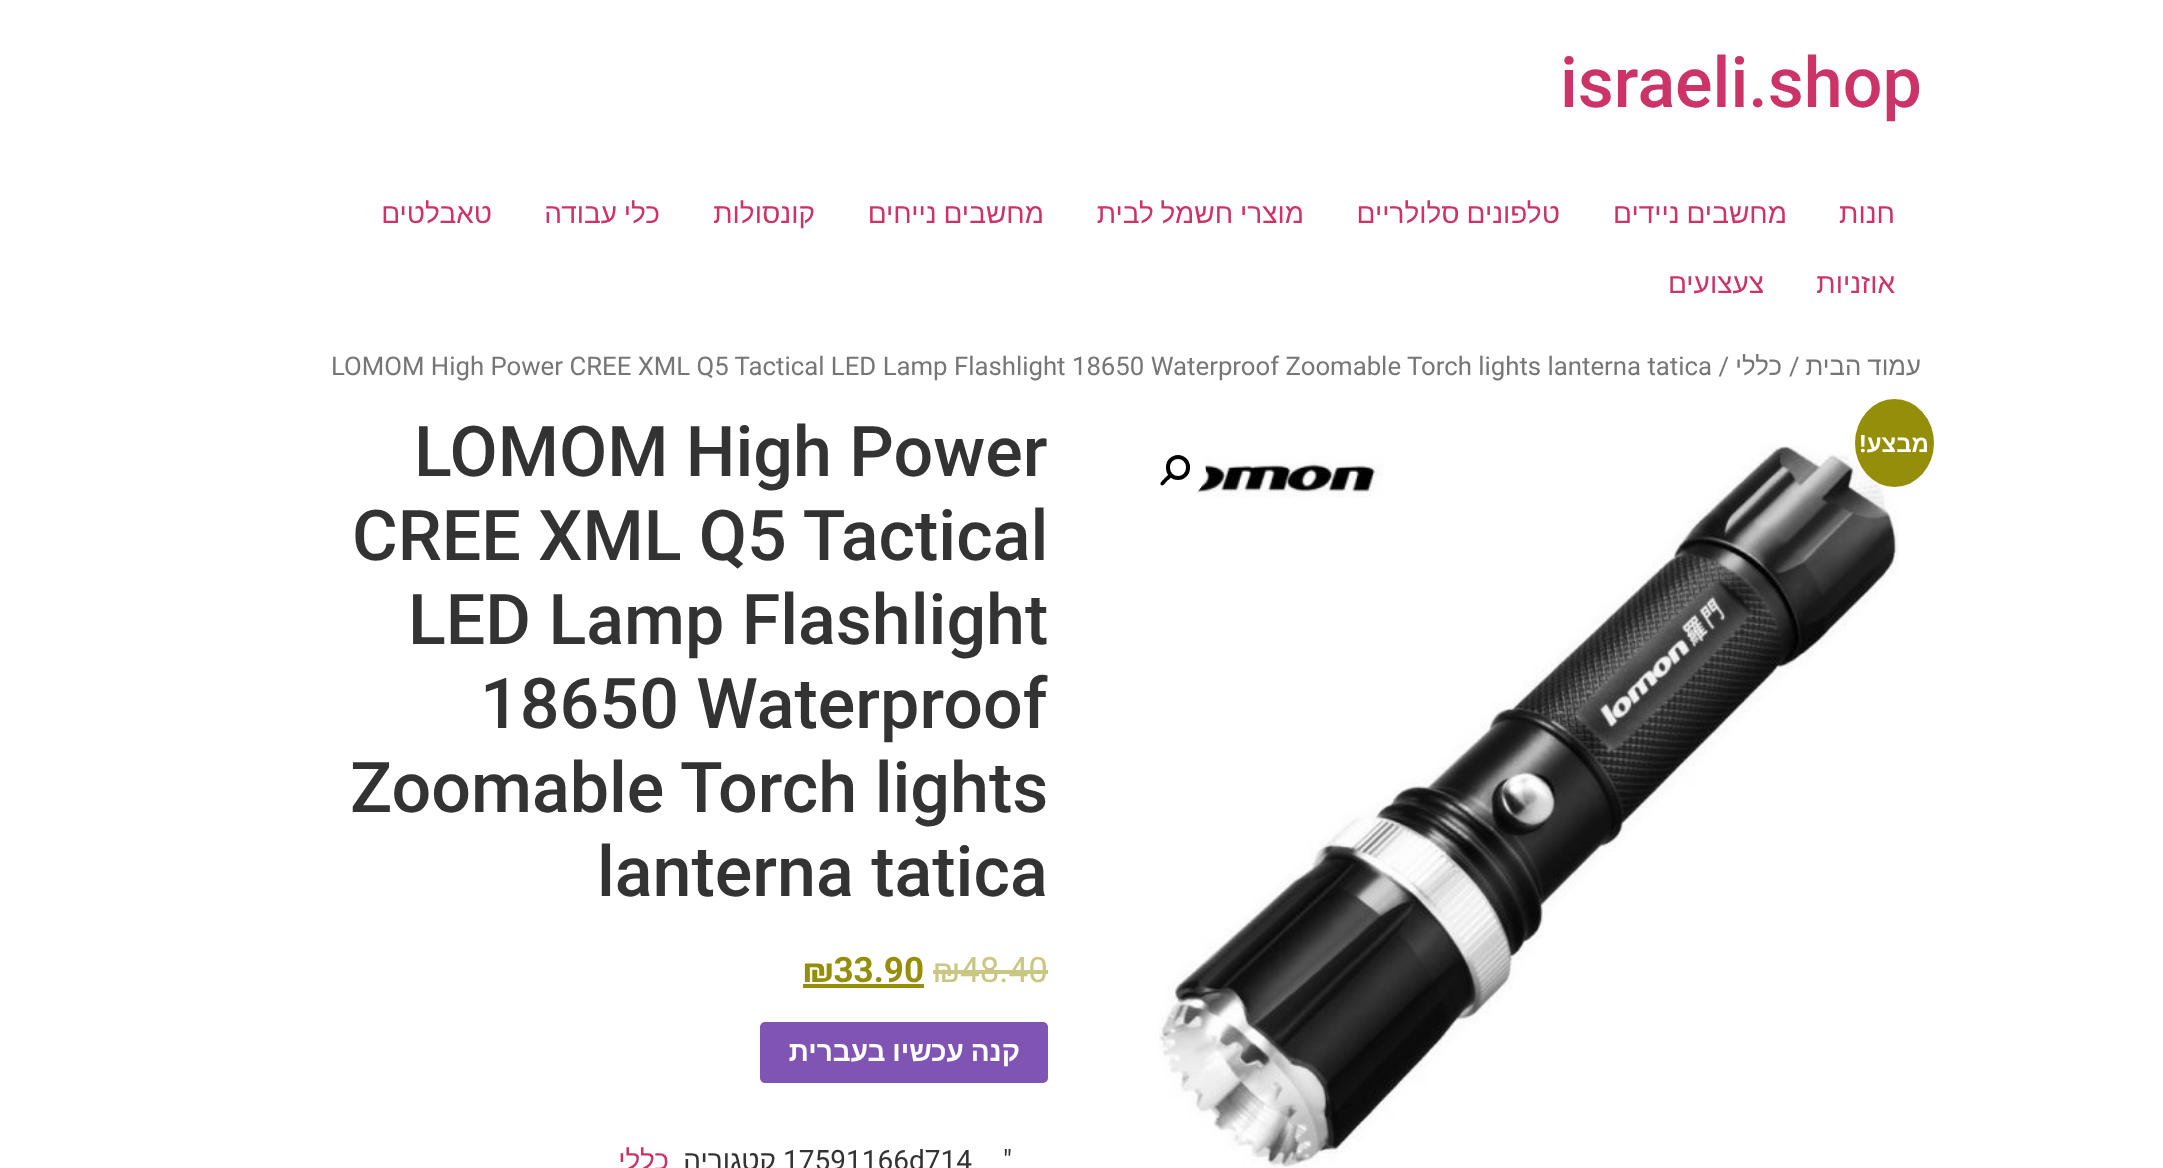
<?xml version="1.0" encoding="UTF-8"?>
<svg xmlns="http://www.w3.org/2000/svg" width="2163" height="1168">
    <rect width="100%" height="100%" fill="#FFFFFF"/>
    <text x="1560" y="107" font-family="Roboto" font-size="70" font-weight="500" fill="#CC3366">israeli.shop</text>
    <text x="492" y="223" font-family="Liberation Sans" font-size="28" direction="rtl" fill="#CC3366">טאבלטים</text>
    <text x="660" y="223" word-spacing="-1" font-family="Liberation Sans" font-size="28" direction="rtl" fill="#CC3366">כלי עבודה</text>
    <text x="815" y="223" font-family="Liberation Sans" font-size="28" direction="rtl" fill="#CC3366">קונסולות</text>
    <text x="1044" y="223" word-spacing="-1" font-family="Liberation Sans" font-size="28" direction="rtl" fill="#CC3366">מחשבים נייחים</text>
    <text x="1304" y="223" word-spacing="-1" font-family="Liberation Sans" font-size="28" direction="rtl" fill="#CC3366">מוצרי חשמל לבית</text>
    <text x="1560" y="223" word-spacing="-1" font-family="Liberation Sans" font-size="28" direction="rtl" fill="#CC3366">טלפונים סלולריים</text>
    <text x="1787" y="223" word-spacing="-1" font-family="Liberation Sans" font-size="28" direction="rtl" fill="#CC3366">מחשבים ניידים</text>
    <text x="1895" y="223" font-family="Liberation Sans" font-size="28" direction="rtl" fill="#CC3366">חנות</text>
    <text x="1764" y="293" font-family="Liberation Sans" font-size="28" direction="rtl" fill="#CC3366">צעצועים</text>
    <text x="1895" y="293" font-family="Liberation Sans" font-size="28" direction="rtl" fill="#CC3366">אוזניות</text>
    <text x="331" y="375" font-family="Roboto" font-size="25.75" fill="#767676">LOMOM High Power CREE XML Q5 Tactical LED Lamp Flashlight 18650 Waterproof Zoomable Torch lights lanterna tatica /</text>
    <text x="1782" y="375" font-family="Liberation Sans" font-size="25.75" direction="rtl" fill="#767676">כללי</text>
    <text x="1789" y="375" font-family="Roboto" font-size="25.75" fill="#767676">/</text>
    <text x="1921" y="375" word-spacing="-1" font-family="Liberation Sans" font-size="25.75" direction="rtl" fill="#767676">עמוד הבית</text>
    <text x="414" y="476" font-family="Roboto" font-size="70" font-weight="500" fill="#333333">LOMOM High Power</text>
    <text x="352" y="560" font-family="Roboto" font-size="70" font-weight="500" fill="#333333">CREE XML Q5 Tactical</text>
    <text x="408" y="644" font-family="Roboto" font-size="70" font-weight="500" fill="#333333">LED Lamp Flashlight</text>
    <text x="480" y="728" font-family="Roboto" font-size="70" font-weight="500" fill="#333333">18650 Waterproof</text>
    <text x="350" y="812" font-family="Roboto" font-size="70" font-weight="500" fill="#333333">Zoomable Torch lights</text>
    <text x="597" y="896" font-family="Roboto" font-size="70" font-weight="500" fill="#333333">lanterna tatica</text>
    <text x="803" y="982" font-family="Roboto" font-size="35" font-weight="700" fill="#958E09">₪33.90</text>
    <rect x="803" y="984" width="121" height="4" fill="#958E09"/>
    <text x="933" y="982" font-family="Roboto" font-size="35" fill="#CAC784">₪</text>
    <rect x="933" y="970" width="28" height="4" fill="#CAC784"/>
    <rect x="961" y="970" width="87" height="4" fill="#CAC784"/>
    <text x="960" y="982" font-family="Roboto" font-size="35" fill="#CAC784">48.40</text>
    <rect x="760" y="1022" width="288" height="61" rx="5" fill="#7F54B3"/>
    <text x="1020" y="1061" word-spacing="-1" font-family="Liberation Sans" font-size="28" font-weight="700" direction="rtl" fill="#FFFFFF">קנה עכשיו בעברית</text>
    <text x="669" y="1170" font-family="Liberation Sans" font-size="28" direction="rtl" fill="#CC3366">כללי</text>
    <text x="776" y="1170" font-family="Liberation Sans" font-size="28" direction="rtl" fill="#333333">קטגוריה</text>
    <text x="783" y="1170" font-family="Roboto" font-size="28" fill="#333333">17591166d714</text>
    <text x="1012" y="1170" font-family="Roboto" font-size="28" direction="rtl" fill="#333333">"</text>
    <image x="1158" y="444" width="741" height="723" href="img_01.png"/>
    <ellipse cx="1894.5" cy="443" rx="39.5" ry="44" fill="#958E09"/>
    <text x="1866" y="452" font-family="Roboto" font-size="24" font-weight="700" direction="rtl" fill="#FFFFFF">!</text>
    <text x="1929" y="452" font-family="Liberation Sans" font-size="24" font-weight="700" direction="rtl" fill="#FFFFFF">מבצע</text>
    <circle cx="1174.5" cy="470.5" r="31.5" fill="#FFFFFF"/>
    <rect x="1168" y="457" width="20" height="21" rx="10" fill="none" stroke="#000000" stroke-width="4"/>
    <path d="M 1171 475 C 1173 477 1168 480 1167 481 C 1166 482 1163 487 1161 485 C 1159 483 1163.5 479.5 1164.5 478.5 C 1165.5 477.5 1169 473 1171 475 Z" fill="#000000"/>
</svg>
